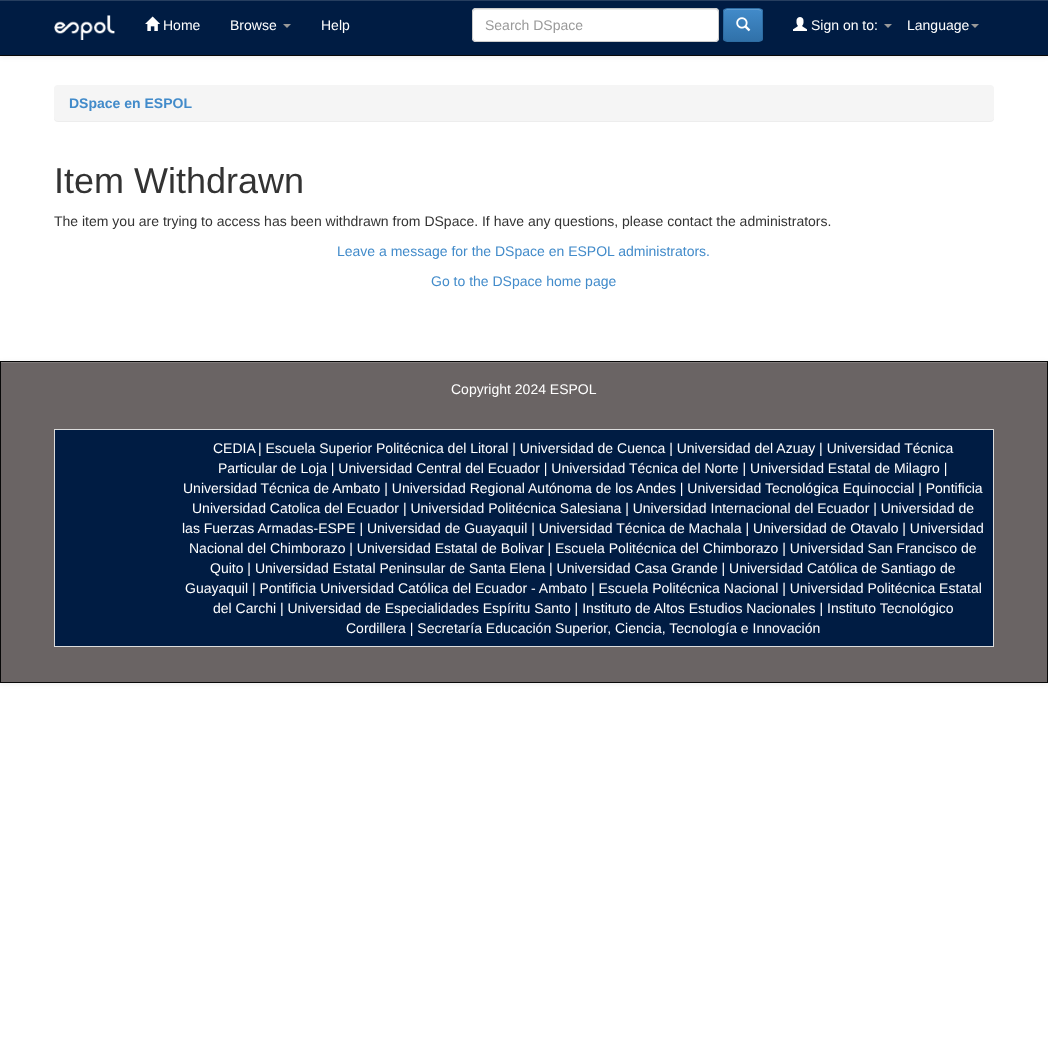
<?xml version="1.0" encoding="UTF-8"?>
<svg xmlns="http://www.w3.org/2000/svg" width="1048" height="1053">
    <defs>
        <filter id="blur1" x="-50%" y="-200%" width="200%" height="500%"><feGaussianBlur stdDeviation="2.5"/></filter>
        <clipPath id="clip1"><rect x="723" y="8" width="40" height="34" rx="4"/></clipPath>
        <linearGradient id="g1" gradientUnits="userSpaceOnUse" x1="743" y1="9" x2="743" y2="41"><stop offset="0" stop-color="#428BCA"/><stop offset="1" stop-color="#3071A9"/></linearGradient>
        <filter id="blur2" x="-50%" y="-200%" width="200%" height="500%"><feGaussianBlur stdDeviation="0.5"/></filter>
    </defs>
    <rect width="100%" height="100%" fill="#FFFFFF"/>
    <rect x="0" y="1" width="1048" height="56" fill="#000000" fill-opacity="0.07" filter="url(#blur1)"/>
    <rect x="0" y="1" width="1048" height="54" fill="#001C43"/>
    <rect x="0" y="0" width="1048" height="1" fill="#263E5F"/>
    <rect x="0" y="55" width="1048" height="1" fill="#080808"/>
    <image x="54" y="15" width="61" height="25" href="img_01.png"/>
    <image x="145" y="16" width="15" height="15" href="img_02.png"/>
    <text x="163" y="30" font-family="Liberation Sans" font-size="14" fill="#FFFFFF">Home</text>
    <text x="230" y="30" font-family="Liberation Sans" font-size="14" fill="#FFFFFF">Browse</text>
    <path d="M 283 24 H 291 L 287 28 Z" fill="#999999"/>
    <text x="321" y="30" font-family="Liberation Sans" font-size="14" fill="#FFFFFF">Help</text>
    <rect x="472" y="8" width="247" height="34" rx="4" fill="#FFFFFF"/>
    <path d="M 476 10 H 716 L 718 11 V 13 C 718 11 717 9 715 9 H 476 C 474 9 473 11 473 13 C 473 11 474 10 476 10 Z" fill="#ECECEC"/>
    <rect x="472.5" y="8.5" width="246" height="33" rx="3.5" fill="none" stroke="#CCCCCC"/>
    <text x="485" y="30" font-family="Liberation Sans" font-size="14" fill="#999999">Search DSpace</text>
    <g clip-path="url(#clip1)">
        <rect x="723" y="9" width="40" height="32" fill="url(#g1)"/>
    </g>
    <path d="M 727 10 H 754 C 759.5 10 761.5 10.5 762 12.5 C 762 7.5 757.5 9 753.5 9 H 732.5 C 729 9 724 8 724 12.5 C 724.5 11 725.5 10 727 10 Z" fill="#5E9CD1"/>
    <rect x="723.5" y="8.5" width="39" height="33" rx="3.5" fill="none" stroke="#2D6CA2"/>
    <image x="736" y="17" width="15" height="15" href="img_03.png"/>
    <image x="793" y="17" width="14" height="14" href="img_04.png"/>
    <text x="811" y="30" font-family="Liberation Sans" font-size="14" fill="#FFFFFF">Sign on to:</text>
    <path d="M 884 24 H 892 L 888 28 Z" fill="#999999"/>
    <text x="907" y="30" font-family="Liberation Sans" font-size="14" fill="#FFFFFF">Language</text>
    <path d="M 971 24 H 979 L 975 28 Z" fill="#999999"/>
    <rect x="54" y="86" width="940" height="36" rx="4" fill="#000000" fill-opacity="0.07" filter="url(#blur2)"/>
    <rect x="54" y="85" width="940" height="36" rx="4" fill="#F5F5F5"/>
    <text x="69" y="108" font-family="Liberation Sans" font-size="14" font-weight="700" fill="#428BCA">DSpace en ESPOL</text>
    <text x="54" y="193" font-family="Liberation Sans" font-size="36" fill="#333333">Item Withdrawn</text>
    <text x="54" y="226" font-family="Liberation Sans" font-size="14" fill="#333333">The item you are trying to access has been withdrawn from DSpace. If have any questions, please contact the administrators.</text>
    <text x="337" y="256" font-family="Liberation Sans" font-size="14" fill="#428BCA">Leave a message for the DSpace en ESPOL administrators.</text>
    <text x="431" y="286" font-family="Liberation Sans" font-size="14" fill="#428BCA">Go to the DSpace home page</text>
    <rect x="0" y="362" width="1048" height="322" fill="#000000" fill-opacity="0.07" filter="url(#blur1)"/>
    <rect x="1" y="363" width="1046" height="319" fill="#6A6464"/>
    <rect x="1" y="362" width="1046" height="1" fill="#807B7B"/>
    <rect x="0.5" y="361.5" width="1047" height="321" fill="none" stroke="#080808"/>
    <text x="451" y="394" font-family="Liberation Sans" font-size="14" fill="#FFFFFF">Copyright 2024 ESPOL</text>
    <rect x="55" y="430" width="938" height="216" fill="#001C43"/>
    <rect x="54" y="429" width="940" height="1" fill="#DCDCDC"/>
    <rect x="993" y="429" width="1" height="218" fill="#DCDCDC"/>
    <rect x="54" y="646" width="940" height="1" fill="#DCDCDC"/>
    <rect x="54" y="429" width="1" height="218" fill="#DCDCDC"/>
    <text x="213" y="453" font-family="Liberation Sans" font-size="14" fill="#FFFFFF">CEDIA</text>
    <text x="258" y="453" font-family="Liberation Sans" font-size="14" fill="#FFFFFF">| Escuela Superior Politécnica del Litoral | Universidad de Cuenca | Universidad del Azuay | Universidad Técnica</text>
    <text x="218" y="473" font-family="Liberation Sans" font-size="14" fill="#FFFFFF">Particular de Loja | Universidad Central del Ecuador | Universidad Técnica del Norte | Universidad Estatal de Milagro |</text>
    <text x="183" y="493" font-family="Liberation Sans" font-size="14" fill="#FFFFFF">Universidad Técnica de Ambato | Universidad Regional Autónoma de los Andes | Universidad Tecnológica Equinoccial | Pontificia</text>
    <text x="192" y="513" font-family="Liberation Sans" font-size="14" fill="#FFFFFF">Universidad Catolica del Ecuador | Universidad Politécnica Salesiana | Universidad Internacional del Ecuador | Universidad de</text>
    <text x="182" y="533" font-family="Liberation Sans" font-size="14" fill="#FFFFFF">las Fuerzas Armadas-ESPE | Universidad de Guayaquil | Universidad Técnica de Machala | Universidad de Otavalo | Universidad</text>
    <text x="189" y="553" font-family="Liberation Sans" font-size="14" fill="#FFFFFF">Nacional del Chimborazo | Universidad Estatal de Bolivar | Escuela Politécnica del Chimborazo | Universidad San Francisco de</text>
    <text x="210" y="573" font-family="Liberation Sans" font-size="14" fill="#FFFFFF">Quito | Universidad Estatal Peninsular de Santa Elena | Universidad Casa Grande | Universidad Católica de Santiago de</text>
    <text x="185" y="593" font-family="Liberation Sans" font-size="14" fill="#FFFFFF">Guayaquil | Pontificia Universidad Católica del Ecuador - Ambato | Escuela Politécnica Nacional | Universidad Politécnica Estatal</text>
    <text x="213" y="613" font-family="Liberation Sans" font-size="14" fill="#FFFFFF">del Carchi | Universidad de Especialidades Espíritu Santo | Instituto de Altos Estudios Nacionales | Instituto Tecnológico</text>
    <text x="346" y="633" font-family="Liberation Sans" font-size="14" fill="#FFFFFF">Cordillera | Secretaría Educación Superior, Ciencia, Tecnología e Innovación</text>
</svg>
